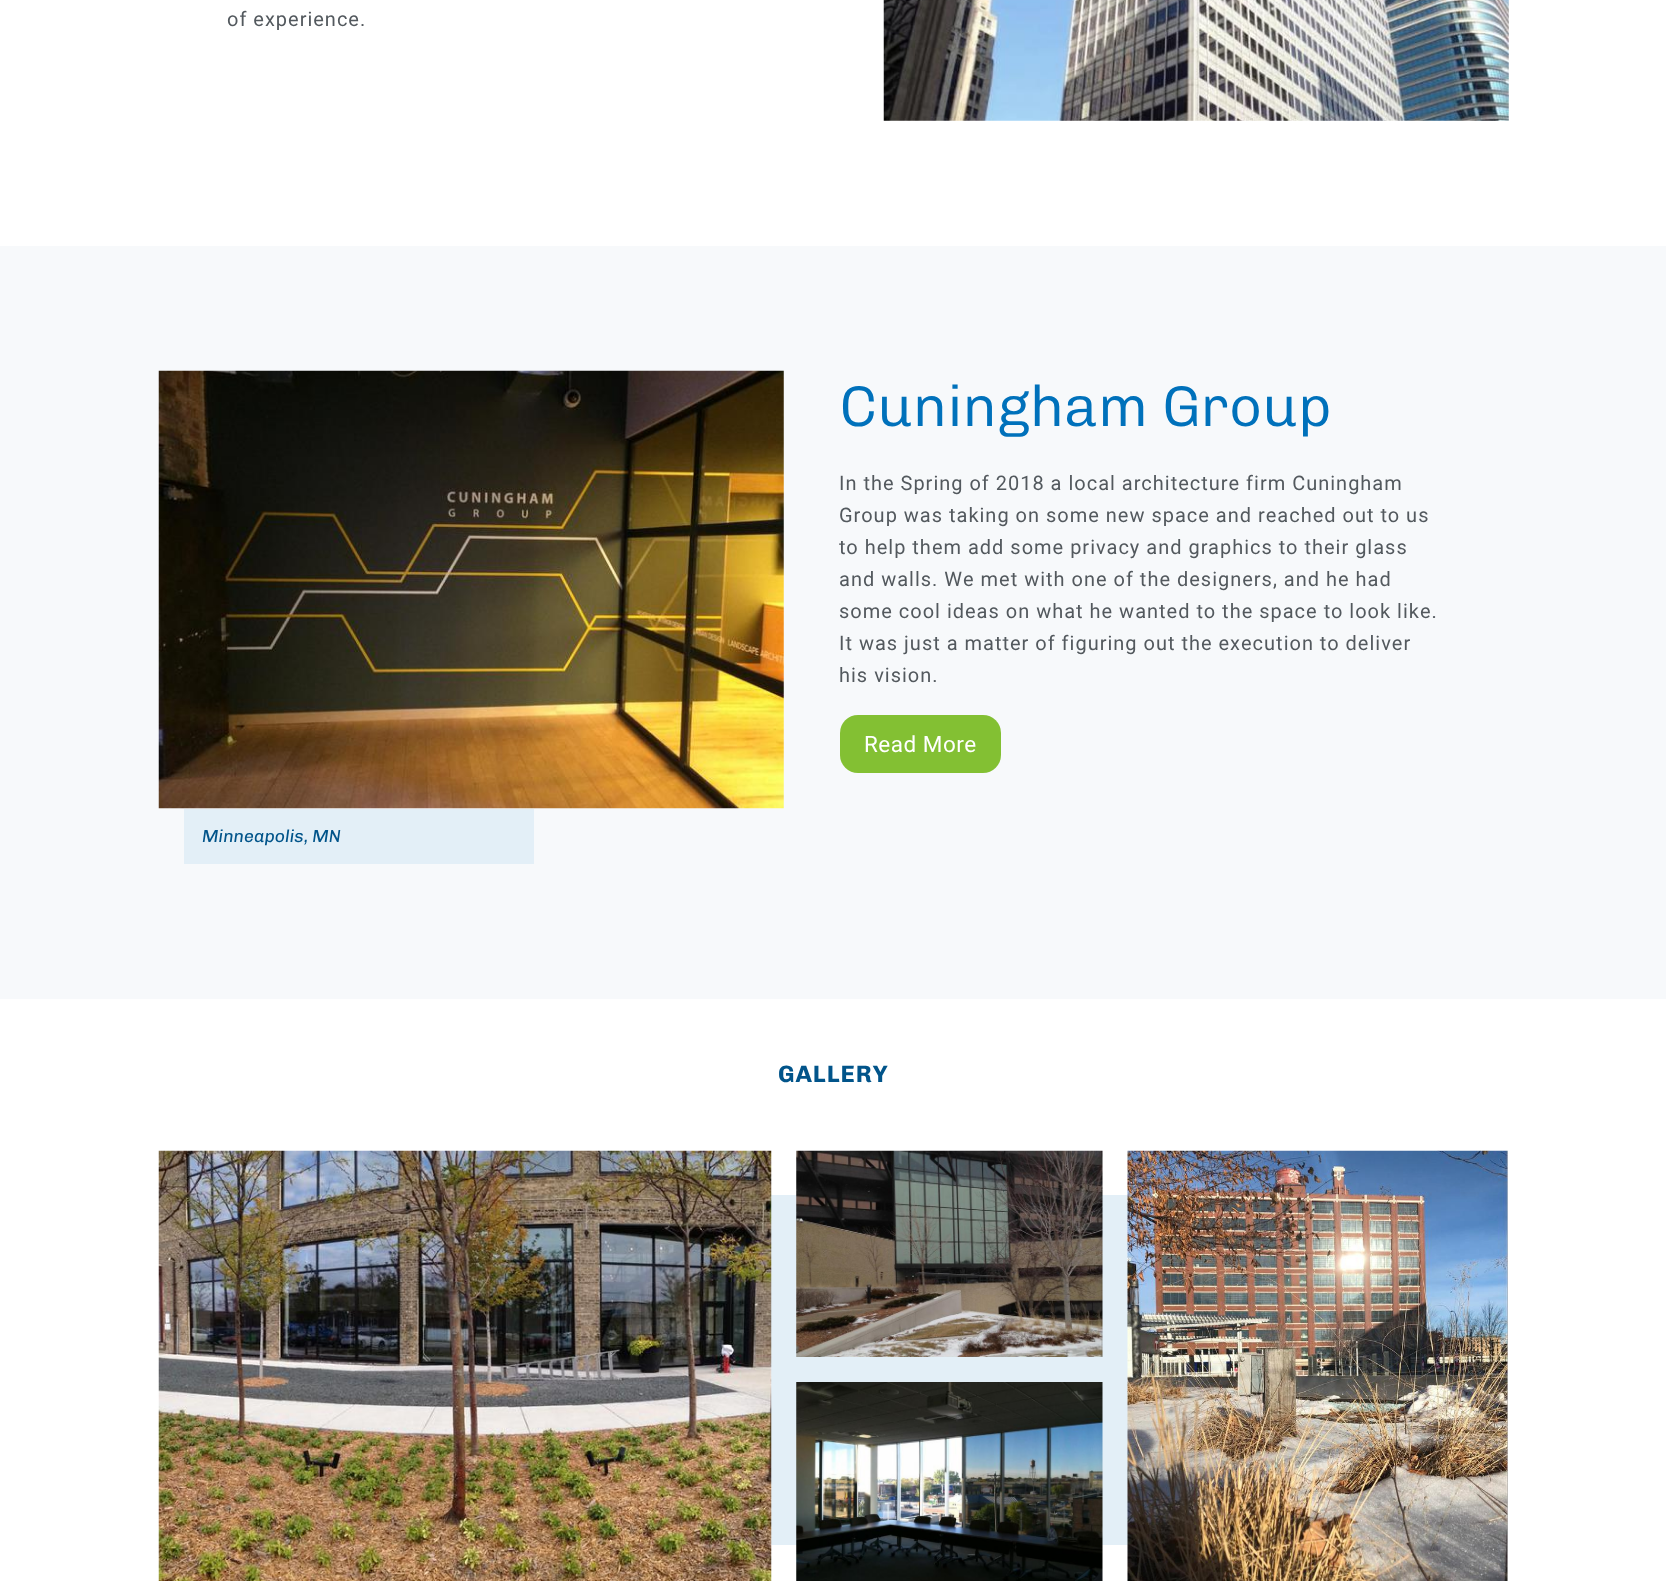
<?xml version="1.0" encoding="UTF-8"?>
<svg xmlns="http://www.w3.org/2000/svg" width="1666" height="1581">
    <rect width="100%" height="100%" fill="#FFFFFF"/>
    <text x="227" y="26" font-family="Roboto" font-size="20" letter-spacing="1" fill="#53595E">of experience.</text>
    <image x="883" y="0" width="626" height="121" href="img_01.png"/>
    <rect x="0" y="246" width="1666" height="753" fill="#F7F9FB"/>
    <text x="839" y="426" font-family="Chivo" font-size="57.5" font-weight="300" fill="#0071BB">Cuningham Group</text>
    <text font-family="Roboto" font-size="20" letter-spacing="1" fill="#53595E">
        <tspan x="839" y="490">In the Spring of 2018 a local architecture firm Cuningham</tspan>
        <tspan x="839" y="522">Group was taking on some new space and reached out to us</tspan>
        <tspan x="839" y="554">to help them add some privacy and graphics to their glass</tspan>
        <tspan x="839" y="586">and walls. We met with one of the designers, and he had</tspan>
        <tspan x="839" y="618">some cool ideas on what he wanted to the space to look like.</tspan>
        <tspan x="839" y="650">It was just a matter of figuring out the execution to deliver</tspan>
        <tspan x="839" y="682">his vision.</tspan>
    </text>
    <rect x="840" y="715" width="161" height="58" rx="18" fill="#83C033"/>
    <text x="864" y="752" font-family="Roboto" font-size="22.5" letter-spacing="0.5" fill="#FFFFFF">Read More</text>
    <image x="158" y="370" width="626" height="439" href="img_02.png"/>
    <rect x="184" y="809" width="350" height="55" fill="#E3EFF7"/>
    <text x="202" y="842" font-family="Chivo" font-size="17.5" font-style="italic" fill="#01548A">Minneapolis, MN</text>
    <text x="778" y="1082" font-family="Chivo" font-size="23.75" font-weight="700" letter-spacing="1" fill="#01548A">GALLERY</text>
    <rect x="771" y="1195" width="357" height="350" fill="#E3EFF7"/>
    <image x="158" y="1150" width="614" height="431" href="img_03.png"/>
    <image x="796" y="1150" width="307" height="207" href="img_04.png"/>
    <image x="1127" y="1150" width="381" height="431" href="img_05.png"/>
    <image x="796" y="1382" width="307" height="199" href="img_06.png"/>
</svg>
